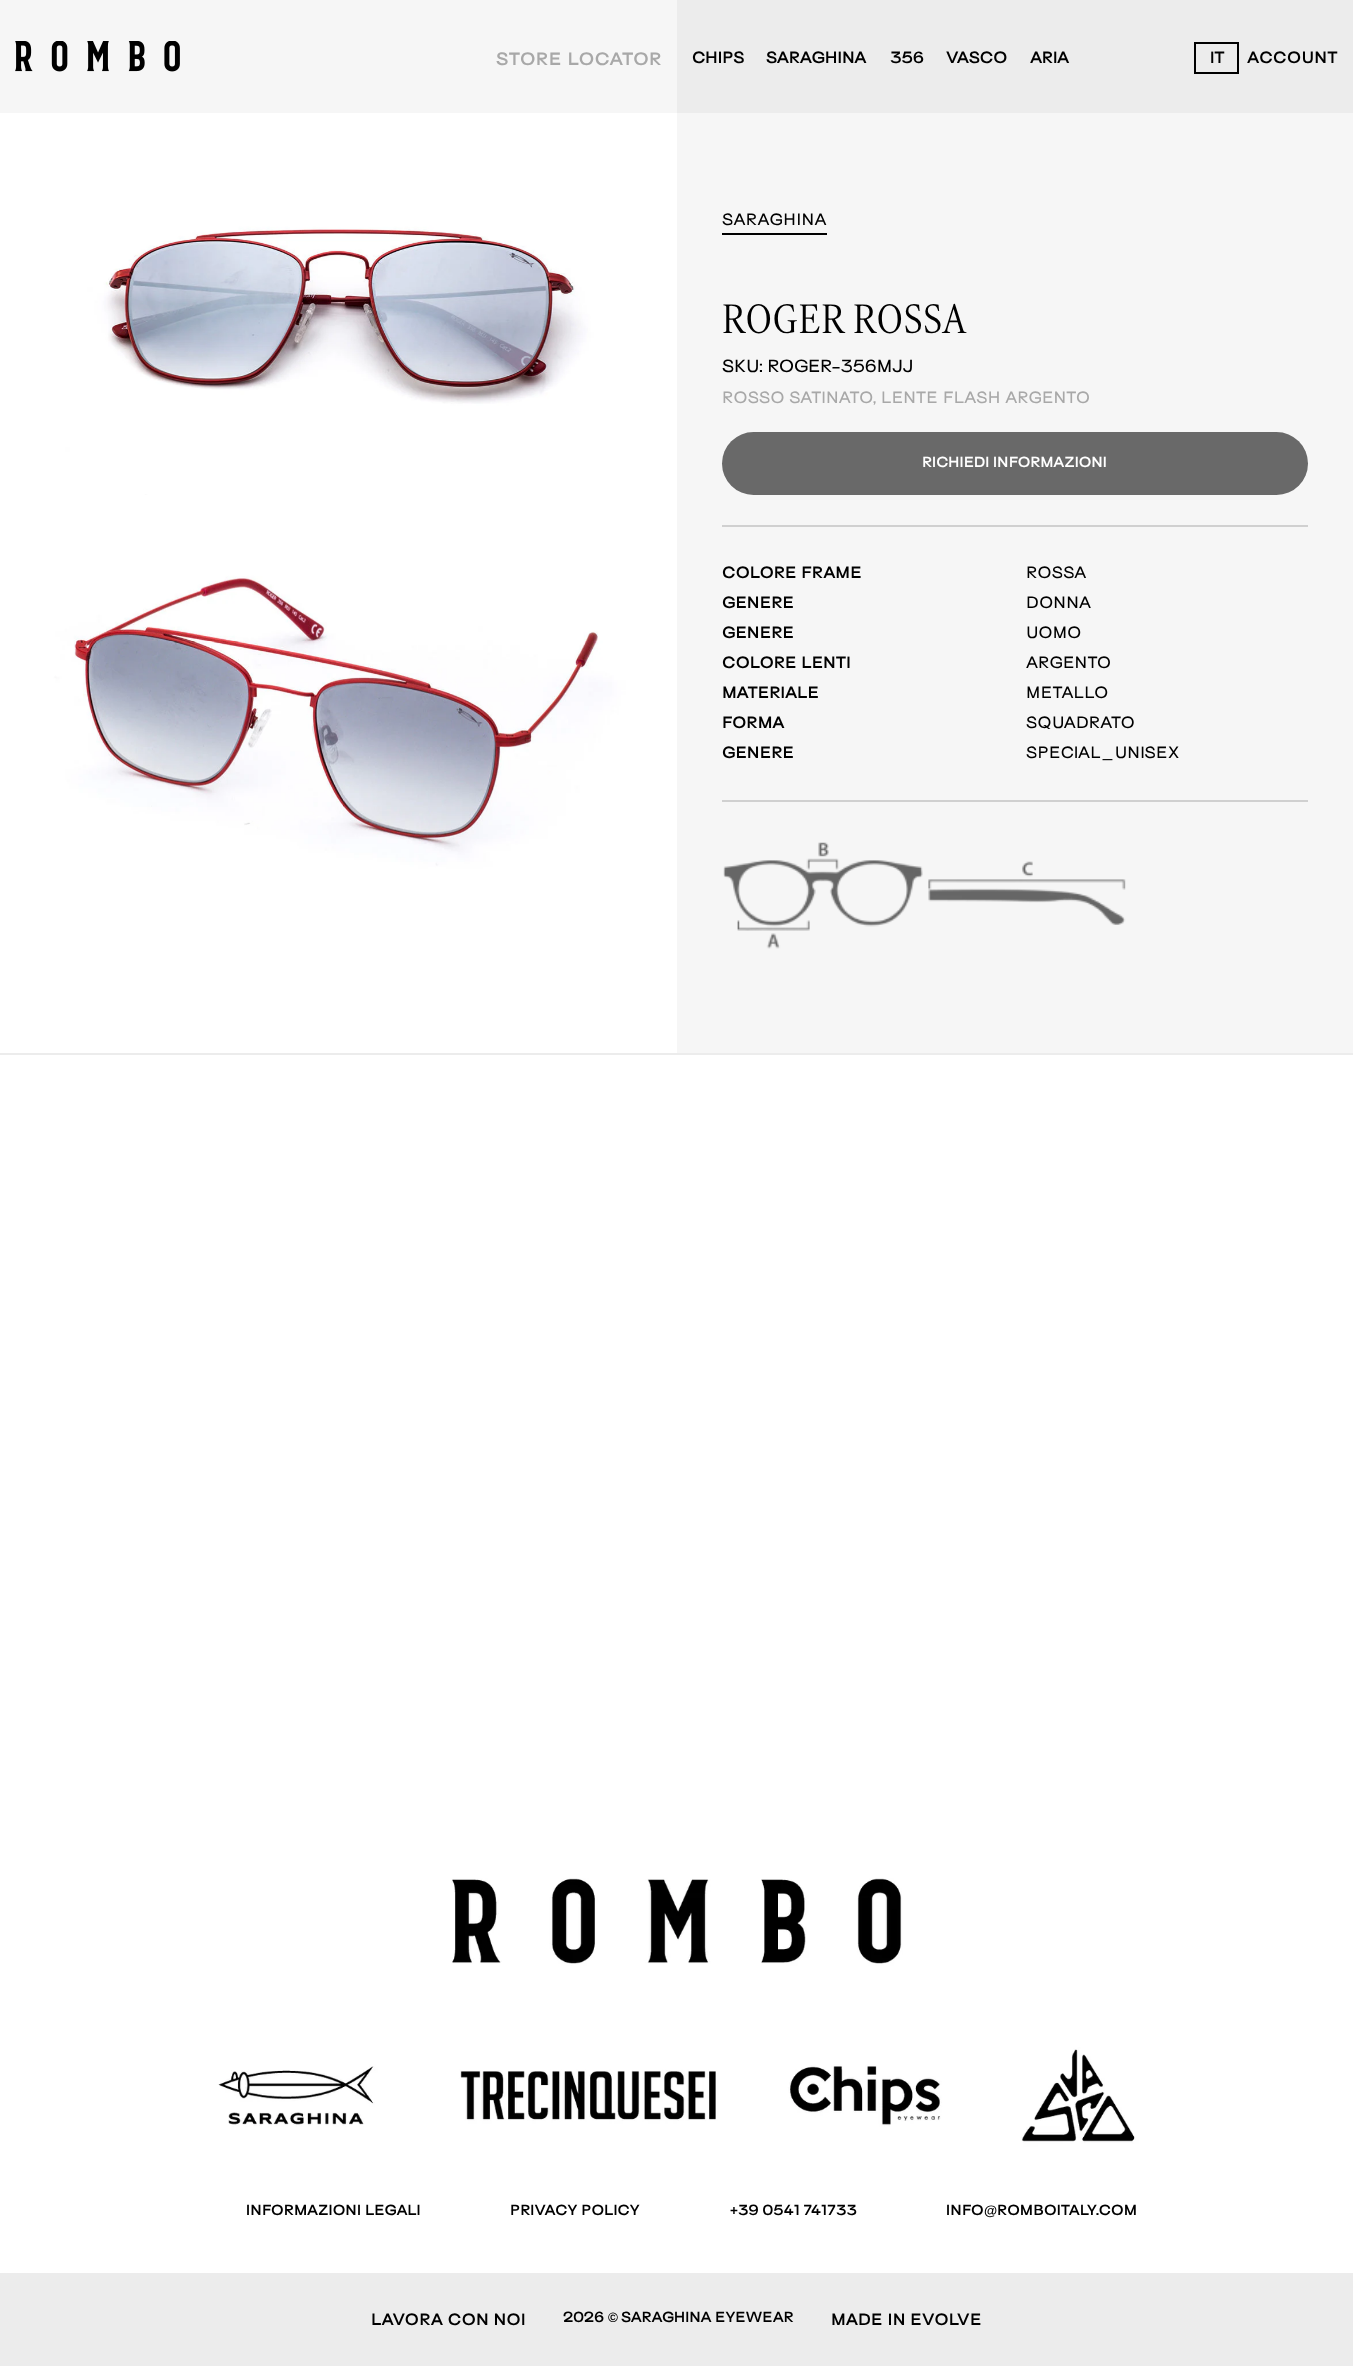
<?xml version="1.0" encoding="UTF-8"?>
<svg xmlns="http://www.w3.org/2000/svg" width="1353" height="2366">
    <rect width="100%" height="100%" fill="#FFFFFF"/>
    <rect x="0" y="0" width="677" height="113" fill="#F6F6F6"/>
    <image x="15" y="41" width="165" height="31" href="img_01.png"/>
    <text x="496" y="65" font-family="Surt" font-size="16.5" font-weight="600" letter-spacing="0.7" fill="#A8A8A8">STORE LOCATOR</text>
    <rect x="677" y="0" width="676" height="113" fill="#ECECEC"/>
    <text x="692" y="63" font-family="Surt" font-size="15" font-weight="600" fill="#000000">CHIPS</text>
    <text x="766" y="63" font-family="Surt" font-size="15" font-weight="600" fill="#000000">SARAGHINA</text>
    <text x="890" y="63" font-family="Surt" font-size="15" font-weight="600" fill="#000000">356</text>
    <text x="946" y="63" font-family="Surt" font-size="15" font-weight="600" fill="#000000">VASCO</text>
    <text x="1030" y="63" font-family="Surt" font-size="15" font-weight="600" fill="#000000">ARIA</text>
    <rect x="1195" y="43" width="43" height="30" fill="none" stroke="#000000" stroke-width="2"/>
    <text x="1210" y="63" font-family="Surt" font-size="15" font-weight="600" fill="#000000">IT</text>
    <text x="1247" y="63" font-family="Surt" font-size="15" font-weight="600" letter-spacing="0.45" fill="#000000">ACCOUNT</text>
    <rect x="0" y="1053" width="1353" height="2" fill="#ECECEC"/>
    <image x="51" y="113" width="575" height="382" href="img_02.png"/>
    <image x="51" y="495" width="575" height="381" href="img_03.png"/>
    <rect x="677" y="113" width="676" height="940" fill="#F6F6F6"/>
    <text x="722" y="225" font-family="Surt" font-size="15" font-weight="500" letter-spacing="0.75" fill="#000000">SARAGHINA</text>
    <rect x="722" y="233" width="105" height="2" fill="#000000"/>
    <text x="722" y="333" font-family="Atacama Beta" font-size="36" font-weight="300" letter-spacing="1" fill="#000000">ROGER ROSSA</text>
    <text x="722" y="372" font-family="Surt" font-size="16.25" font-weight="500" fill="#000000">SKU: ROGER-356MJJ</text>
    <text x="722" y="403" font-family="Surt" font-size="15" font-weight="500" letter-spacing="0.45" fill="#A8A8A8">ROSSO SATINATO, LENTE FLASH ARGENTO</text>
    <rect x="722" y="432" width="586" height="63" rx="31.5" fill="#696969"/>
    <text x="922" y="467" font-family="Surt" font-size="13.5" font-weight="600" letter-spacing="0.1" fill="#FFFFFF">RICHIEDI INFORMAZIONI</text>
    <rect x="722" y="525" width="586" height="2" fill="#D0D0D0"/>
    <rect x="722" y="800" width="586" height="2" fill="#D0D0D0"/>
    <text x="722" y="578" font-family="Surt" font-size="15" font-weight="600" letter-spacing="0.25" fill="#000000">COLORE FRAME</text>
    <text x="1026" y="578" font-family="Surt" font-size="15" font-weight="500" letter-spacing="0.5" fill="#000000">ROSSA</text>
    <text x="722" y="608" font-family="Surt" font-size="15" font-weight="600" letter-spacing="0.25" fill="#000000">GENERE</text>
    <text x="1026" y="608" font-family="Surt" font-size="15" font-weight="500" letter-spacing="0.5" fill="#000000">DONNA</text>
    <text x="722" y="638" font-family="Surt" font-size="15" font-weight="600" letter-spacing="0.25" fill="#000000">GENERE</text>
    <text x="1026" y="638" font-family="Surt" font-size="15" font-weight="500" letter-spacing="0.5" fill="#000000">UOMO</text>
    <text x="722" y="668" font-family="Surt" font-size="15" font-weight="600" letter-spacing="0.25" fill="#000000">COLORE LENTI</text>
    <text x="1026" y="668" font-family="Surt" font-size="15" font-weight="500" letter-spacing="0.5" fill="#000000">ARGENTO</text>
    <text x="722" y="698" font-family="Surt" font-size="15" font-weight="600" letter-spacing="0.25" fill="#000000">MATERIALE</text>
    <text x="1026" y="698" font-family="Surt" font-size="15" font-weight="500" letter-spacing="0.5" fill="#000000">METALLO</text>
    <text x="722" y="728" font-family="Surt" font-size="15" font-weight="600" letter-spacing="0.25" fill="#000000">FORMA</text>
    <text x="1026" y="728" font-family="Surt" font-size="15" font-weight="500" letter-spacing="0.5" fill="#000000">SQUADRATO</text>
    <text x="722" y="758" font-family="Surt" font-size="15" font-weight="600" letter-spacing="0.25" fill="#000000">GENERE</text>
    <text x="1026" y="758" font-family="Surt" font-size="15" font-weight="500" letter-spacing="0.5" fill="#000000">SPECIAL_UNISEX</text>
    <image x="723" y="842" width="403" height="107" href="img_04.png"/>
    <image x="0" y="1869" width="1353" height="282" href="img_05.png"/>
    <text x="246" y="2215" font-family="Surt" font-size="13.5" font-weight="600" letter-spacing="0.2" fill="#000000">INFORMAZIONI LEGALI</text>
    <text x="510" y="2215" font-family="Surt" font-size="13.5" font-weight="600" letter-spacing="0.2" fill="#000000">PRIVACY POLICY</text>
    <text x="730" y="2215" font-family="Liberation Sans" font-size="13.5" font-weight="700" letter-spacing="0.2" fill="#000000">+</text>
    <text x="738" y="2215" font-family="Surt" font-size="13.5" font-weight="600" letter-spacing="0.2" fill="#000000">39 0541 741733</text>
    <text x="946" y="2215" font-family="Surt" font-size="13.5" font-weight="600" letter-spacing="0.2" fill="#000000">INFO</text>
    <text x="984" y="2215" font-family="Liberation Sans" font-size="13.5" font-weight="700" letter-spacing="0.2" fill="#000000">@</text>
    <text x="997" y="2215" font-family="Surt" font-size="13.5" font-weight="600" letter-spacing="0.2" fill="#000000">ROMBOITALY.COM</text>
    <rect x="0" y="2273" width="1353" height="93" fill="#ECECEC"/>
    <text x="371" y="2325" font-family="Surt" font-size="15" font-weight="600" letter-spacing="0.45" fill="#000000">LAVORA CON NOI</text>
    <text x="563" y="2322" font-family="Surt" font-size="13.5" font-weight="600" fill="#000000">2026</text>
    <text x="608" y="2322" font-family="Liberation Sans" font-size="13.5" font-weight="700" fill="#000000">©</text>
    <text x="621" y="2322" font-family="Surt" font-size="13.5" font-weight="600" fill="#000000">SARAGHINA EYEWEAR</text>
    <text x="831" y="2325" font-family="Surt" font-size="15" font-weight="600" letter-spacing="0.45" fill="#000000">MADE IN EVOLVE</text>
</svg>
